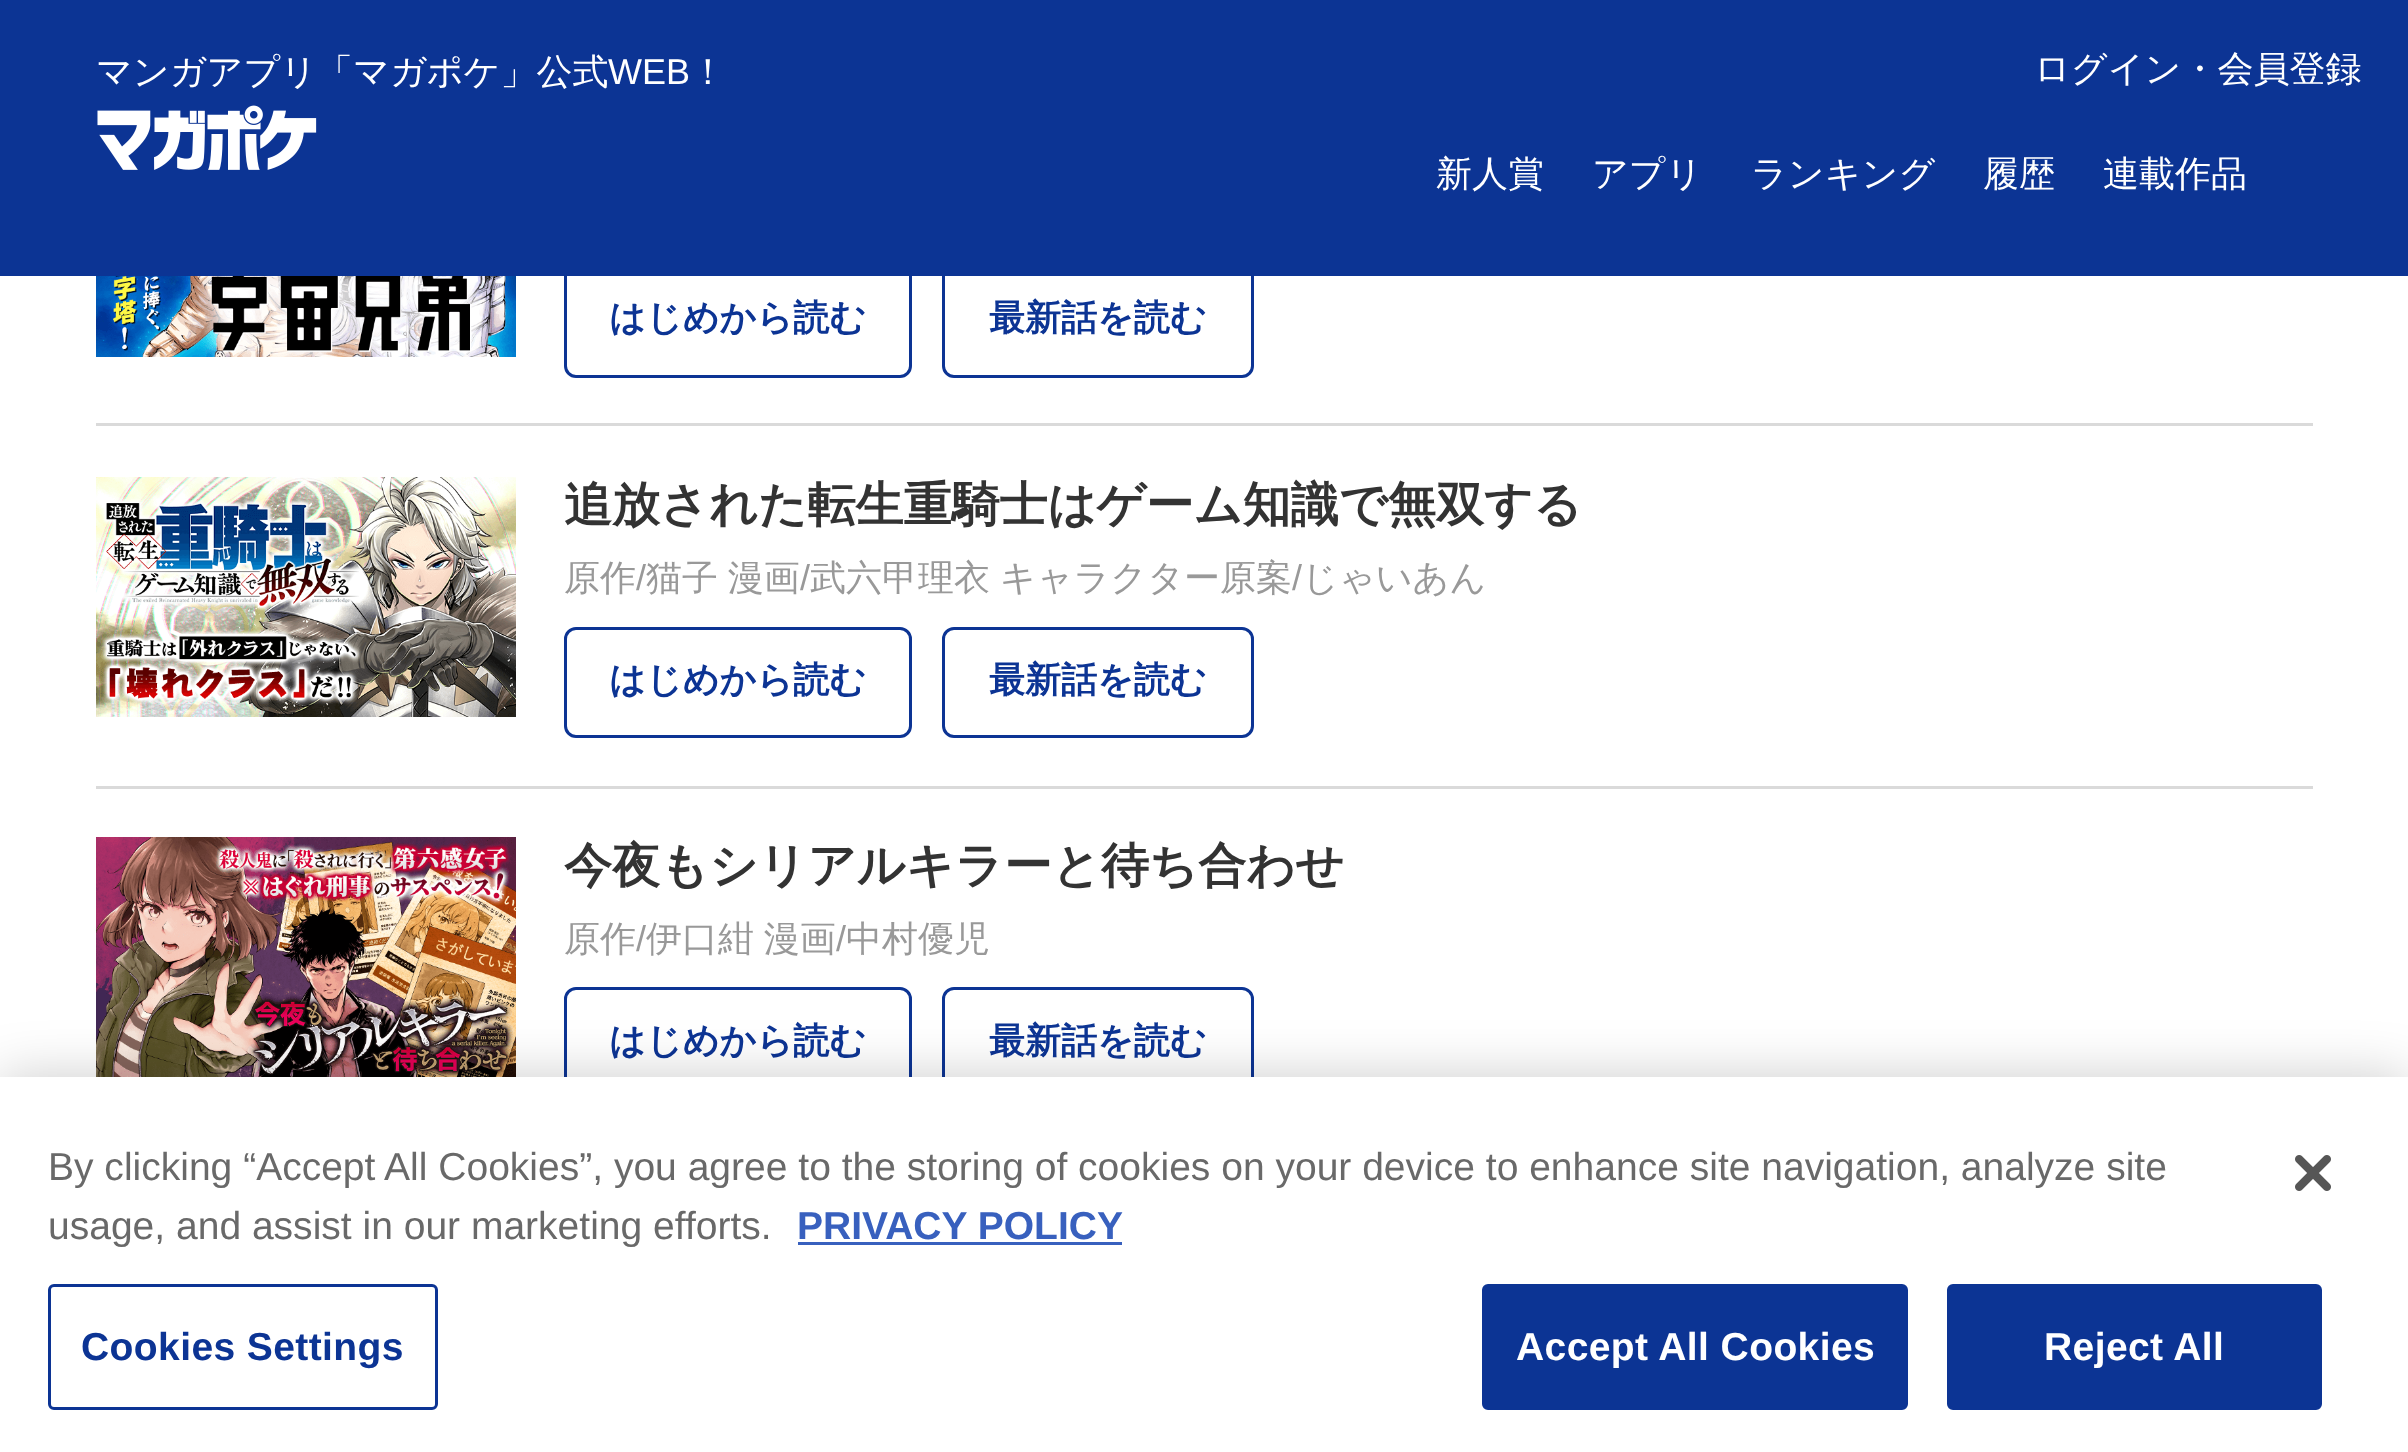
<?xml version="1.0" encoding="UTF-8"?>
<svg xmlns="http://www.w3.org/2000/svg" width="2408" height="1452">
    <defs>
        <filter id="blur1" x="-50%" y="-200%" width="200%" height="500%"><feGaussianBlur stdDeviation="27"/></filter>
    </defs>
    <rect width="100%" height="100%" fill="#FFFFFF"/>
    <rect x="565.5" y="265.5" width="345" height="111" rx="10.5" fill="none" stroke="#0C3494" stroke-width="3"/>
    <rect x="943.5" y="265.5" width="309" height="111" rx="10.5" fill="none" stroke="#0C3494" stroke-width="3"/>
    <rect x="0" y="0" width="2408" height="276" fill="#0C3494"/>
    <text x="96" y="84" font-family="WenQuanYi Zen Hei" font-size="36" font-weight="500" fill="#FFFFFF">マンガアプリ「マガポケ」公式</text>
    <text x="608" y="84" font-family="Liberation Sans" font-size="36" fill="#FFFFFF">WEB</text>
    <text x="690" y="84" font-family="WenQuanYi Zen Hei" font-size="36" font-weight="500" fill="#FFFFFF">！</text>
    <image x="97" y="105" width="220" height="65" href="img_01.png"/>
    <text x="2034" y="81" font-family="WenQuanYi Zen Hei" font-size="36" font-weight="500" fill="#FFFFFF">ログイン・会員登録</text>
    <text x="1436" y="186" font-family="WenQuanYi Zen Hei" font-size="36" font-weight="500" fill="#FFFFFF">新人賞</text>
    <text x="1592" y="186" font-family="WenQuanYi Zen Hei" font-size="36" font-weight="500" fill="#FFFFFF">アプリ</text>
    <text x="1751" y="186" font-family="WenQuanYi Zen Hei" font-size="36" font-weight="500" fill="#FFFFFF">ランキング</text>
    <text x="1983" y="186" font-family="WenQuanYi Zen Hei" font-size="36" font-weight="500" fill="#FFFFFF">履歴</text>
    <text x="2103" y="186" font-family="WenQuanYi Zen Hei" font-size="36" font-weight="500" fill="#FFFFFF">連載作品</text>
    <image x="96" y="276" width="420" height="81" href="img_02.png"/>
    <text x="609" y="330" font-family="WenQuanYi Zen Hei" font-size="36" font-weight="700" fill="#0C3494">はじめから読む</text>
    <text x="989" y="330" font-family="WenQuanYi Zen Hei" font-size="36" font-weight="700" fill="#0C3494">最新話を読む</text>
    <rect x="96" y="423" width="2217" height="3" fill="#DADADA"/>
    <image x="96" y="477" width="420" height="240" href="img_03.png"/>
    <text x="564" y="521" font-family="WenQuanYi Zen Hei" font-size="48" font-weight="700" fill="#333333">追放された転生重騎士はゲーム知識で無双する</text>
    <text x="564" y="590" font-family="WenQuanYi Zen Hei" font-size="36" font-weight="500" fill="#999999">原作</text>
    <text x="636" y="590" font-family="Liberation Sans" font-size="36" fill="#999999">/</text>
    <text x="646" y="590" word-spacing="-1" font-family="WenQuanYi Zen Hei" font-size="36" font-weight="500" fill="#999999">猫子 漫画</text>
    <text x="800" y="590" font-family="Liberation Sans" font-size="36" fill="#999999">/</text>
    <text x="810" y="590" word-spacing="-1" font-family="WenQuanYi Zen Hei" font-size="36" font-weight="500" fill="#999999">武六甲理衣 キャラクター原案</text>
    <text x="1292" y="590" font-family="Liberation Sans" font-size="36" fill="#999999">/</text>
    <text x="1302" y="590" font-family="WenQuanYi Zen Hei" font-size="36" font-weight="500" fill="#999999">じゃいあん</text>
    <rect x="565.5" y="628.5" width="345" height="108" rx="10.5" fill="none" stroke="#0C3494" stroke-width="3"/>
    <text x="609" y="692" font-family="WenQuanYi Zen Hei" font-size="36" font-weight="700" fill="#0C3494">はじめから読む</text>
    <rect x="943.5" y="628.5" width="309" height="108" rx="10.5" fill="none" stroke="#0C3494" stroke-width="3"/>
    <text x="989" y="692" font-family="WenQuanYi Zen Hei" font-size="36" font-weight="700" fill="#0C3494">最新話を読む</text>
    <rect x="96" y="786" width="2217" height="3" fill="#DADADA"/>
    <image x="96" y="837" width="420" height="240" href="img_04.png"/>
    <text x="564" y="882" font-family="WenQuanYi Zen Hei" font-size="48" font-weight="700" fill="#333333">今夜もシリアルキラーと待ち合わせ</text>
    <text x="564" y="951" font-family="WenQuanYi Zen Hei" font-size="36" font-weight="500" fill="#999999">原作</text>
    <text x="636" y="951" font-family="Liberation Sans" font-size="36" fill="#999999">/</text>
    <text x="646" y="951" word-spacing="-1" font-family="WenQuanYi Zen Hei" font-size="36" font-weight="500" fill="#999999">伊口紺 漫画</text>
    <text x="836" y="951" font-family="Liberation Sans" font-size="36" fill="#999999">/</text>
    <text x="846" y="951" font-family="WenQuanYi Zen Hei" font-size="36" font-weight="500" fill="#999999">中村優児</text>
    <rect x="565.5" y="988.5" width="345" height="111" rx="10.5" fill="none" stroke="#0C3494" stroke-width="3"/>
    <text x="609" y="1053" font-family="WenQuanYi Zen Hei" font-size="36" font-weight="700" fill="#0C3494">はじめから読む</text>
    <rect x="943.5" y="988.5" width="309" height="111" rx="10.5" fill="none" stroke="#0C3494" stroke-width="3"/>
    <text x="989" y="1053" font-family="WenQuanYi Zen Hei" font-size="36" font-weight="700" fill="#0C3494">最新話を読む</text>
    <rect x="0" y="1077" width="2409" height="375" fill="#000000" fill-opacity="0.2" filter="url(#blur1)"/>
    <rect x="0" y="1077" width="2408" height="375" fill="#FFFFFF"/>
    <text font-family="Liberation Sans" font-size="39.02" fill="#696969">
        <tspan x="48" y="1180">By clicking “Accept All Cookies”, you agree to the storing of cookies on your device to enhance site navigation, analyze site</tspan>
        <tspan x="48" y="1239">usage, and assist in our marketing efforts.</tspan>
    </text>
    <text x="797" y="1239" font-family="Liberation Sans" font-size="39.02" font-weight="700" fill="#3860BE">PRIVACY POLICY</text>
    <rect x="798" y="1242" width="324" height="3" fill="#3860BE"/>
    <rect x="49.5" y="1285.5" width="387" height="123" rx="4.5" fill="none" stroke="#0C3494" stroke-width="3"/>
    <text x="81" y="1360" font-family="Liberation Sans" font-size="39.02" font-weight="700" letter-spacing="0.4" fill="#0C3494">Cookies Settings</text>
    <rect x="1483.5" y="1285.5" width="423" height="123" rx="4.5" fill="#0C3494" stroke="#0C3494" stroke-width="3"/>
    <text x="1516" y="1360" font-family="Liberation Sans" font-size="39.02" font-weight="700" letter-spacing="0.4" fill="#FFFFFF">Accept All Cookies</text>
    <rect x="1948.5" y="1285.5" width="372" height="123" rx="4.5" fill="#0C3494" stroke="#0C3494" stroke-width="3"/>
    <text x="2044" y="1360" font-family="Liberation Sans" font-size="39.02" font-weight="700" letter-spacing="0.4" fill="#FFFFFF">Reject All</text>
    <image x="2295" y="1155" width="36" height="36" href="img_05.png"/>
</svg>
